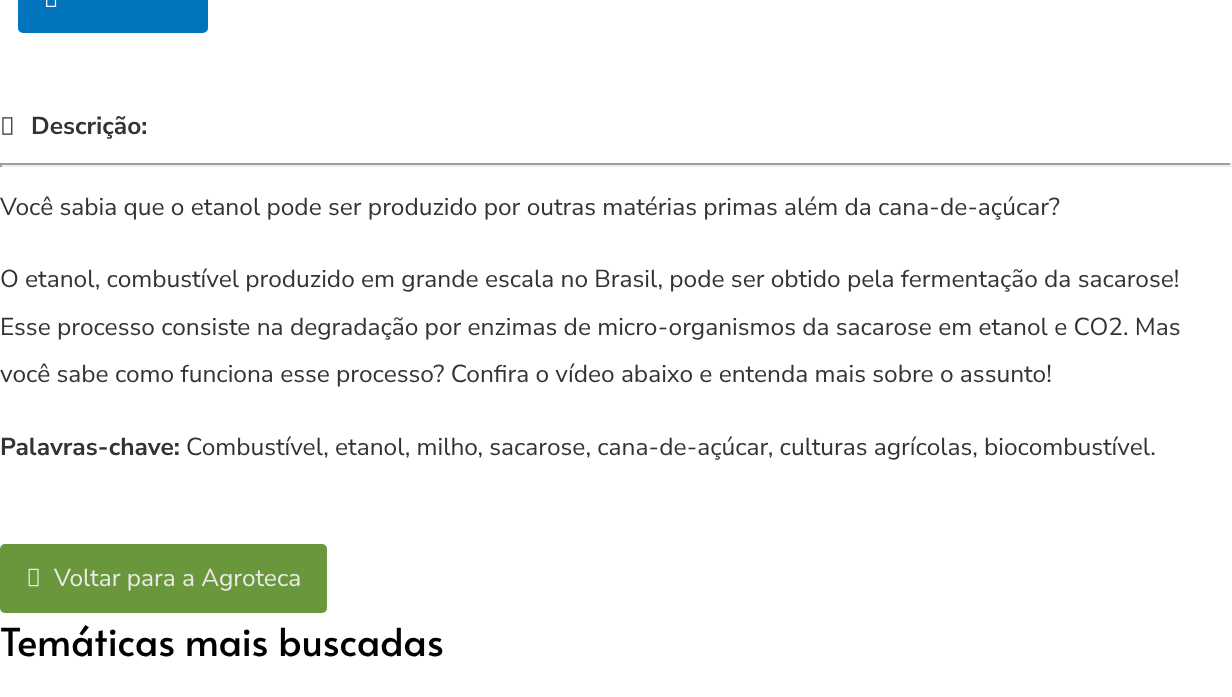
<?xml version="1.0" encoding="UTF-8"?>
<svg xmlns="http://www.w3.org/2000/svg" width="1232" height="697">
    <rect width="100%" height="100%" fill="#FFFFFF"/>
    <rect x="18" y="-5" width="190" height="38" rx="5" fill="#0274BE"/>
    <image x="46" y="0" width="11" height="7" href="img_01.png"/>
    <image x="2" y="117" width="11" height="18" href="img_02.png"/>
    <text x="31" y="134" font-family="Nunito Sans" font-size="24.5" font-weight="700" fill="#333333">Descrição:</text>
    <rect x="0" y="163" width="1232" height="2" fill="#9F9F9F"/>
    <rect x="1230" y="163" width="2" height="4" fill="#EEEEEE"/>
    <rect x="0" y="165" width="1232" height="2" fill="#EEEEEE"/>
    <rect x="0" y="163" width="2" height="4" fill="#9F9F9F"/>
    <text x="0" y="215" font-family="Nunito Sans" font-size="24.5" fill="#333333">Você sabia que o etanol pode ser produzido por outras matérias primas além da cana-de-açúcar?</text>
    <text font-family="Nunito Sans" font-size="24.5" fill="#333333">
        <tspan x="0" y="287">O etanol, combustível produzido em grande escala no Brasil, pode ser obtido pela fermentação da sacarose!</tspan>
        <tspan x="0" y="335">Esse processo consiste na degradação por enzimas de micro-organismos da sacarose em etanol e CO2. Mas</tspan>
        <tspan x="0" y="382">você sabe como funciona esse processo? Confira o vídeo abaixo e entenda mais sobre o assunto!</tspan>
    </text>
    <text x="0" y="455" font-family="Nunito Sans" font-size="24.5" font-weight="700" fill="#333333">Palavras-chave:</text>
    <text x="186" y="455" font-family="Nunito Sans" font-size="24.5" fill="#333333">Combustível, etanol, milho, sacarose, cana-de-açúcar, culturas agrícolas, biocombustível.</text>
    <rect x="0" y="544" width="327" height="69" rx="5" fill="#6A973C"/>
    <image x="28" y="568" width="11" height="19" href="img_03.png"/>
    <text x="54" y="586" font-family="Nunito Sans" font-size="24.5" fill="#EAEAEA">Voltar para a Agroteca</text>
    <text x="0" y="656" font-family="Alata" font-size="38.5" fill="#000000">Temáticas mais buscadas</text>
</svg>
